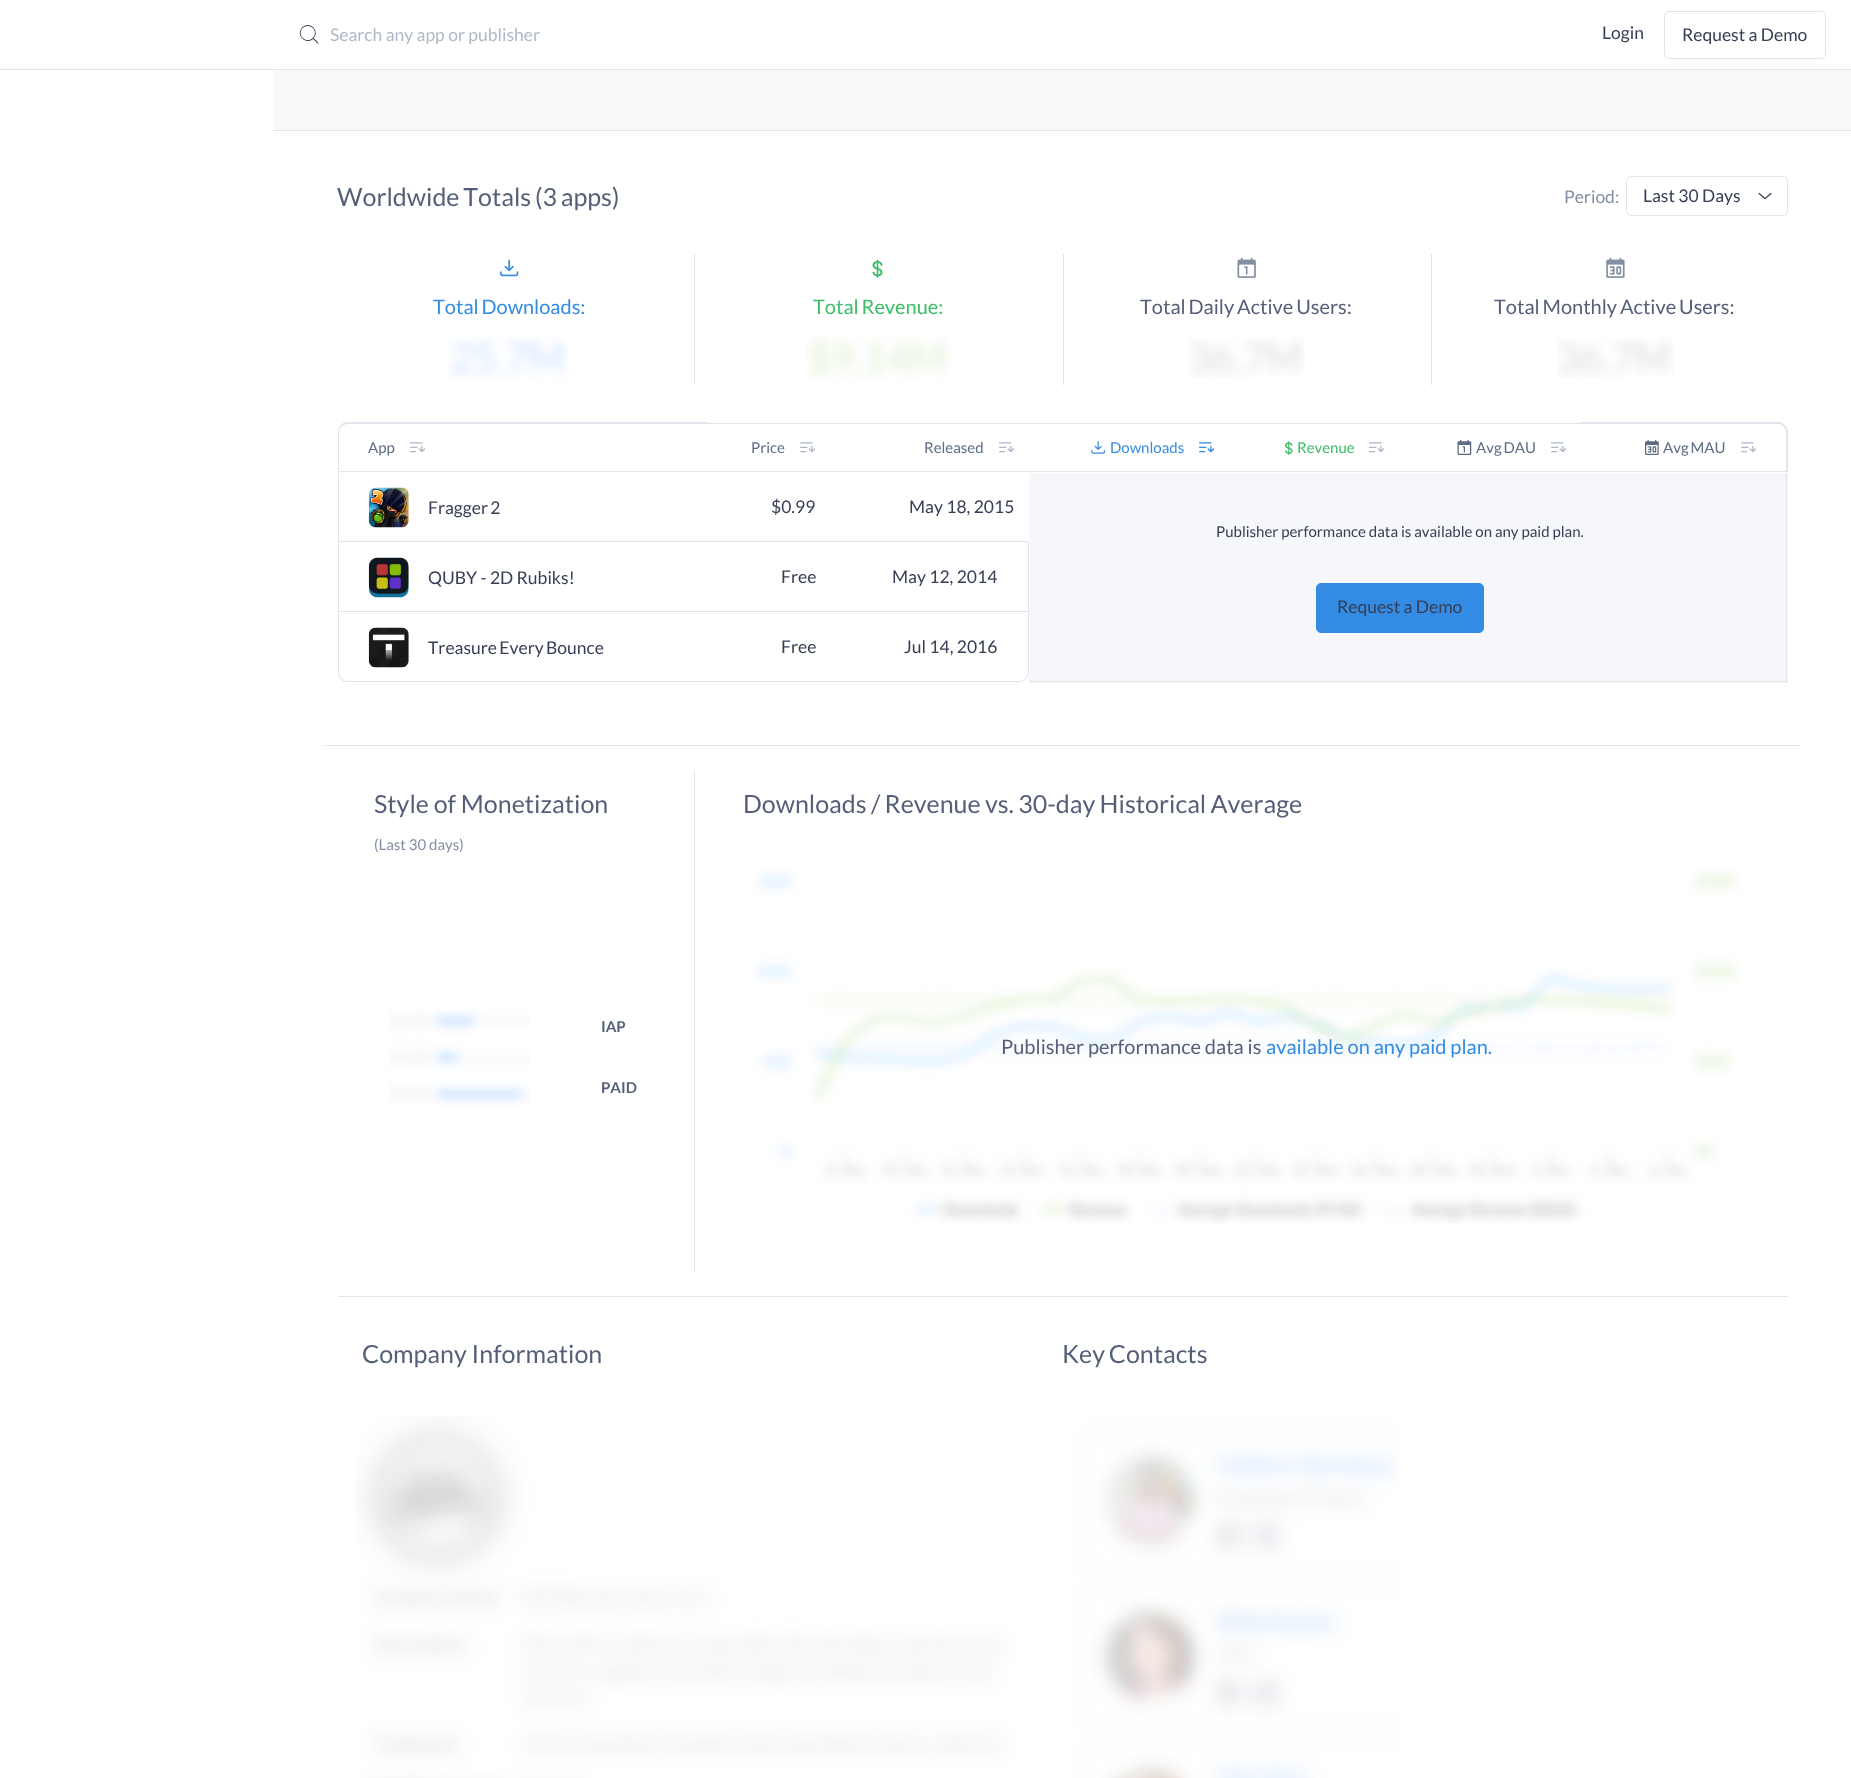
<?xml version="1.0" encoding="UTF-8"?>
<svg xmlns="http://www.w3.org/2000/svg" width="1851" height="1778">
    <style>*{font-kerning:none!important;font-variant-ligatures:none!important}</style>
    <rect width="100%" height="100%" fill="#FFFFFF"/>
    <rect x="0" y="69" width="1851" height="1" fill="#E1E5EB"/>
    <text x="299" y="43" font-family="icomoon" font-size="20" fill="#363D54">󡀈</text>
    <text x="330" y="41" font-family="Lato" font-size="17.5" fill="#AFB8C9">Search any app or publisher</text>
    <text x="1602" y="39" font-family="Lato" font-size="17.5" fill="#363D54">Login</text>
    <rect x="1664.5" y="11.5" width="161" height="47" rx="4.5" fill="none" stroke="#E1E5EB"/>
    <text x="1682" y="41" font-family="Lato" font-size="17.5" fill="#363D54">Request a Demo</text>
    <rect x="273" y="70" width="1578" height="60" fill="#F8F9FB"/>
    <rect x="273" y="130" width="1578" height="1" fill="#E1E5EB"/>
    <text x="337" y="206" word-spacing="-1" font-family="Lato" font-size="25" fill="#555F77">Worldwide Totals (3 apps)</text>
    <text x="1564" y="203" font-family="Lato" font-size="17.5" fill="#848EA1">Period:</text>
    <rect x="1626.5" y="176.5" width="161" height="39" rx="4.5" fill="none" stroke="#E1E5EB"/>
    <text x="1643" y="202" font-family="Lato" font-size="17.5" fill="#363D54">Last 30 Days</text>
    <image x="1758" y="192" width="14" height="8" href="img_01.png"/>
    <image x="500" y="259" width="19" height="18" href="img_02.png"/>
    <text x="433" y="314" word-spacing="-1" font-family="Lato" font-size="20" fill="#348BE3">Total Downloads:</text>
    <image x="448" y="337" width="121" height="43" href="img_03.png"/>
    <rect x="694" y="254" width="1" height="131" fill="#E1E5EB"/>
    <image x="872" y="259" width="11" height="19" href="img_04.png"/>
    <text x="813" y="314" word-spacing="-1" font-family="Lato" font-size="20" fill="#3CBD67">Total Revenue:</text>
    <image x="806" y="336" width="145" height="45" href="img_05.png"/>
    <rect x="1063" y="254" width="1" height="131" fill="#E1E5EB"/>
    <image x="1237" y="257" width="19" height="21" href="img_06.png"/>
    <text x="1140" y="314" word-spacing="-1" font-family="Lato" font-size="20" fill="#555F77">Total Daily Active Users:</text>
    <image x="1188" y="338" width="117" height="40" href="img_07.png"/>
    <rect x="1431" y="254" width="1" height="131" fill="#E1E5EB"/>
    <image x="1606" y="257" width="19" height="21" href="img_08.png"/>
    <text x="1494" y="314" word-spacing="-1" font-family="Lato" font-size="20" fill="#555F77">Total Monthly Active Users:</text>
    <image x="1557" y="338" width="117" height="40" href="img_09.png"/>
    <path d="M 348 422 H 708 V 472 H 338 V 432 C 338 427 342 422 348 422 Z M 348 424 H 708 V 471 H 339 V 432 C 339 428 343 424 348 424 Z" fill="#E1E5EB" fill-rule="evenodd"/>
    <text x="368" y="453" font-family="Lato" font-size="15" fill="#5D6B85">App</text>
    <text x="410" y="456" font-family="icomoon" font-size="20" fill="#AFB8C9">󡅡</text>
    <rect x="708" y="423" width="872" height="1" fill="#E1E5EB"/>
    <rect x="708" y="471" width="872" height="1" fill="#E1E5EB"/>
    <text x="751" y="453" font-family="Lato" font-size="15" fill="#5D6B85">Price</text>
    <text x="800" y="456" font-family="icomoon" font-size="20" fill="#AFB8C9">󡅡</text>
    <text x="924" y="453" font-family="Lato" font-size="15" fill="#5D6B85">Released</text>
    <text x="999" y="456" font-family="icomoon" font-size="20" fill="#AFB8C9">󡅡</text>
    <image x="1091" y="441" width="14" height="13" href="img_10.png"/>
    <text x="1110" y="453" font-family="Lato" font-size="15" fill="#348BE3">Downloads</text>
    <text x="1199" y="456" font-family="icomoon" font-size="20" fill="#348BE3">󡅡</text>
    <image x="1285" y="441" width="8" height="14" href="img_11.png"/>
    <text x="1297" y="453" font-family="Lato" font-size="15" fill="#3CBD67">Revenue</text>
    <text x="1369" y="456" font-family="icomoon" font-size="20" fill="#AFB8C9">󡅡</text>
    <image x="1457" y="440" width="15" height="15" href="img_12.png"/>
    <text x="1476" y="453" word-spacing="-1" font-family="Lato" font-size="15" fill="#5D6B85">Avg DAU</text>
    <text x="1551" y="456" font-family="icomoon" font-size="20" fill="#AFB8C9">󡅡</text>
    <path d="M 1580 422 H 1778 C 1783 422 1788 427 1788 432 V 472 H 1580 Z M 1580 424 H 1778 C 1782 424 1786 428 1786 432 V 471 H 1580 Z" fill="#E1E5EB" fill-rule="evenodd"/>
    <image x="1645" y="440" width="14" height="15" href="img_13.png"/>
    <text x="1663" y="453" word-spacing="-1" font-family="Lato" font-size="15" fill="#5D6B85">Avg MAU</text>
    <text x="1741" y="456" font-family="icomoon" font-size="20" fill="#AFB8C9">󡅡</text>
    <rect x="338" y="541" width="691" height="1" fill="#E1E5EB"/>
    <rect x="338" y="473" width="1" height="70" fill="#E1E5EB"/>
    <image x="368" y="487" width="41" height="41" href="img_14.png"/>
    <text x="428" y="514" word-spacing="-1" font-family="Lato" font-size="17.5" fill="#363D54">Fragger 2</text>
    <text x="771" y="513" font-family="Lato" font-size="17.5" fill="#363D54">$0.99</text>
    <text x="909" y="513" font-family="Lato" font-size="17.5" fill="#363D54">May 18, 2015</text>
    <rect x="1029" y="473" width="759" height="210" fill="#F5F7FA"/>
    <rect x="1786" y="473" width="1" height="210" fill="#E1E5EB"/>
    <rect x="1029" y="681" width="759" height="1" fill="#E1E5EB"/>
    <text x="1216" y="537" font-family="Lato" font-size="15" fill="#363D54">Publisher performance data is available on any paid plan.</text>
    <rect x="1316.5" y="583.5" width="167" height="49" rx="4.5" fill="#348BE3" stroke="#348BE3"/>
    <text x="1337" y="613" font-family="Lato" font-size="17.5" fill="#363D54">Request a Demo</text>
    <rect x="338" y="611" width="492" height="1" fill="#E1E5EB"/>
    <rect x="338" y="543" width="1" height="70" fill="#E1E5EB"/>
    <image x="368" y="557" width="41" height="41" href="img_15.png"/>
    <text x="428" y="584" font-family="Lato" font-size="17.5" fill="#363D54">QUBY - 2D Rubiks!</text>
    <text x="781" y="583" font-family="Lato" font-size="17.5" fill="#363D54">Free</text>
    <rect x="1028" y="543" width="1" height="70" fill="#E1E5EB"/>
    <rect x="830" y="611" width="199" height="1" fill="#E1E5EB"/>
    <text x="892" y="583" font-family="Lato" font-size="17.5" fill="#363D54">May 12, 2014</text>
    <path d="M 338 612 H 708 V 682 H 348 C 342 682 338 678 338 672 Z M 339 612 H 708 V 681 H 348 C 343 681 339 677 339 672 Z" fill="#E1E5EB" fill-rule="evenodd"/>
    <image x="368" y="627" width="41" height="41" href="img_16.png"/>
    <text x="428" y="654" word-spacing="-1" font-family="Lato" font-size="17.5" fill="#363D54">Treasure Every Bounce</text>
    <rect x="708" y="681" width="122" height="1" fill="#E1E5EB"/>
    <text x="781" y="653" font-family="Lato" font-size="17.5" fill="#363D54">Free</text>
    <path d="M 830 612 H 1029 V 672 C 1029 678 1024 682 1019 682 H 830 Z M 830 612 H 1028 V 672 C 1028 677 1024 681 1019 681 H 830 Z" fill="#E1E5EB" fill-rule="evenodd"/>
    <text x="904" y="653" font-family="Lato" font-size="17.5" fill="#363D54">Jul 14, 2016</text>
    <rect x="325" y="745" width="1475" height="1" fill="#E1E5EB"/>
    <text x="374" y="813" font-family="Lato" font-size="25" fill="#555F77">Style of Monetization</text>
    <text x="374" y="850" font-family="Lato" font-size="15" fill="#848EA1">(Last 30 days)</text>
    <image x="389" y="1010" width="141" height="96" href="img_17.png"/>
    <text x="601" y="1032" font-family="Lato" font-size="15" font-weight="700" fill="#555F77">IAP</text>
    <text x="601" y="1093" font-family="Lato" font-size="15" font-weight="700" fill="#555F77">PAID</text>
    <rect x="694" y="771" width="1" height="500" fill="#E1E5EB"/>
    <text x="743" y="813" word-spacing="-0.5" font-family="Lato" font-size="25" fill="#555F77">Downloads / Revenue vs. 30-day Historical Average</text>
    <image x="753" y="869" width="987" height="355" href="img_18.png"/>
    <text x="1001" y="1054" font-family="Lato" font-size="20" fill="#555F77">Publisher performance data is</text>
    <text x="1266" y="1054" font-family="Lato" font-size="20" fill="#348BE3">available on any paid plan.</text>
    <rect x="338" y="1296" width="1450" height="1" fill="#E1E5EB"/>
    <text x="362" y="1363" font-family="Lato" font-size="25" fill="#555F77">Company Information</text>
    <text x="1062" y="1363" word-spacing="-1" font-family="Lato" font-size="25" fill="#555F77">Key Contacts</text>
    <image x="356" y="1416" width="1043" height="362" href="img_19.png"/>
</svg>
